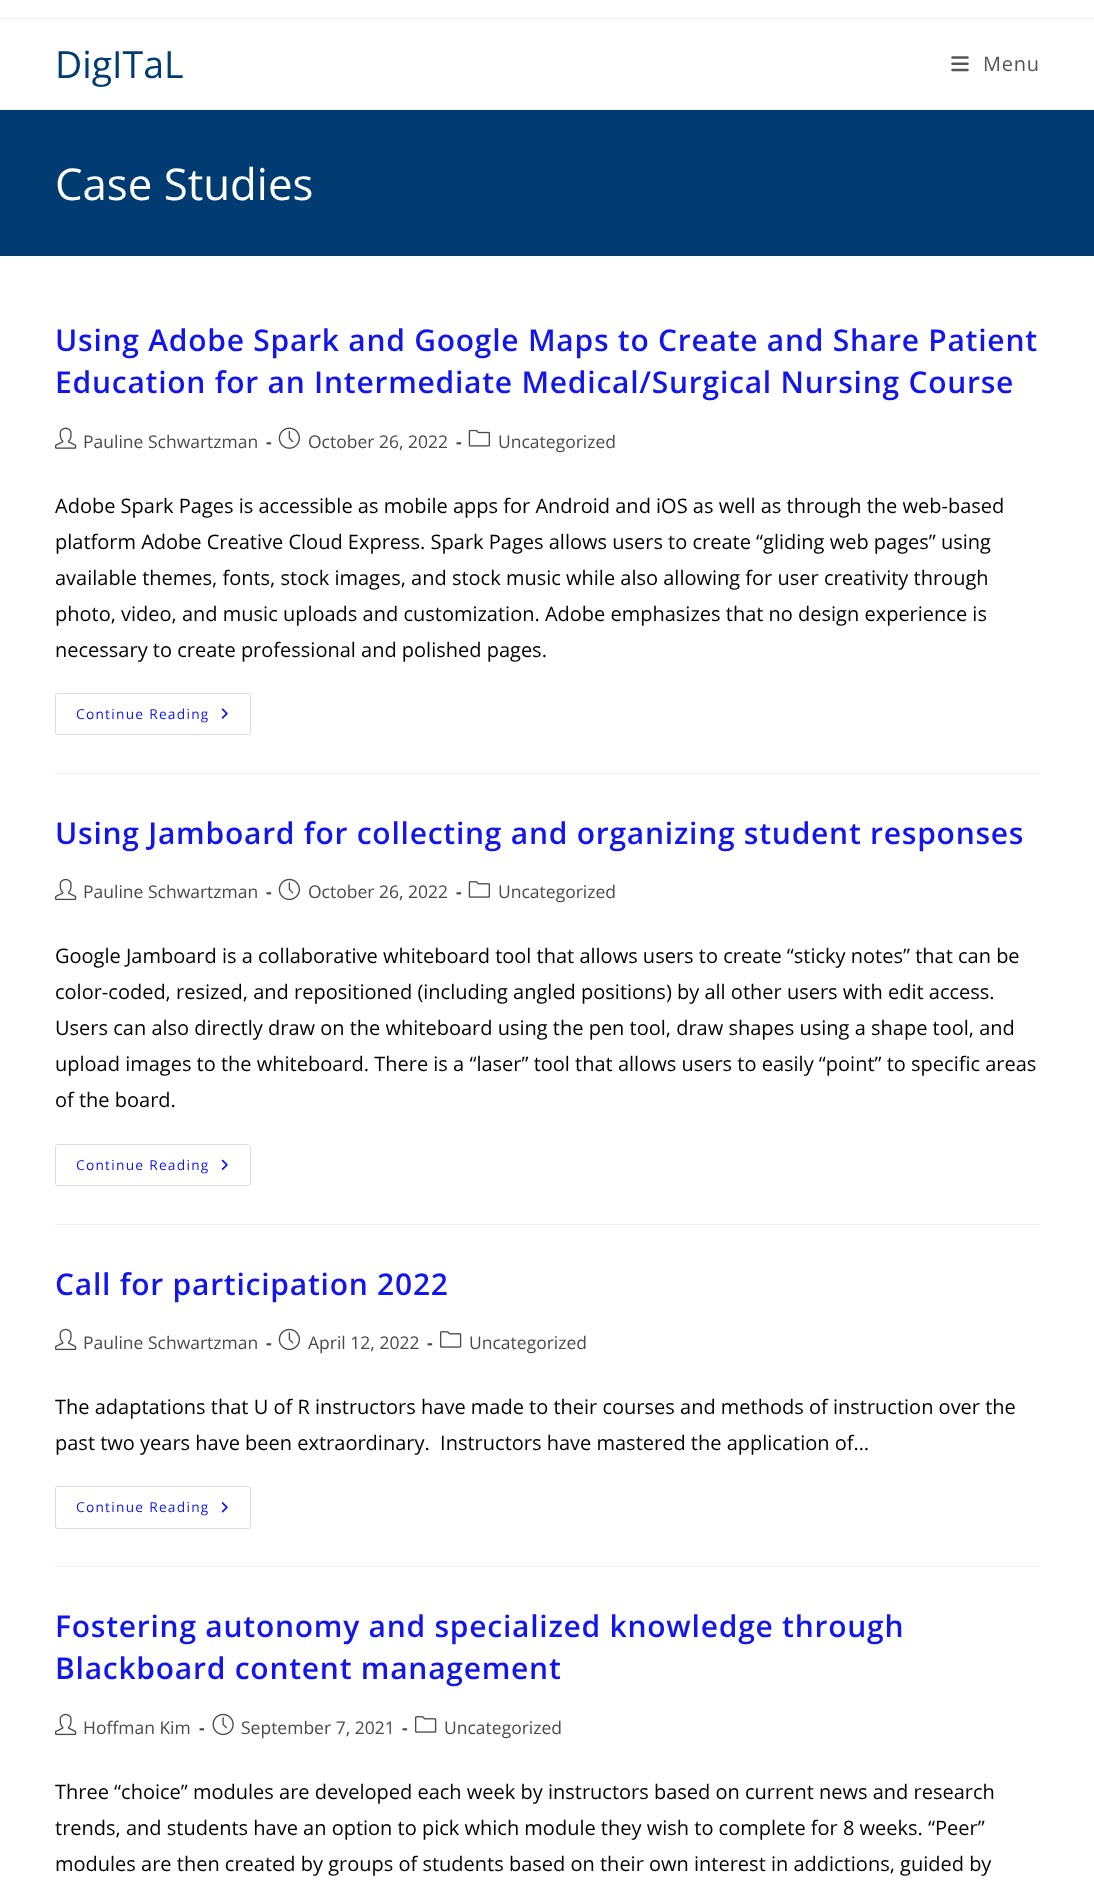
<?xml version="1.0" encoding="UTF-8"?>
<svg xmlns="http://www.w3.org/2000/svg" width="1094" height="1893">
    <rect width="100%" height="100%" fill="#FFFFFF"/>
    <rect x="0" y="18" width="1094" height="1" fill="#F1F1F1"/>
    <rect x="0" y="109" width="1094" height="1" fill="#F1F1F1"/>
    <text x="55" y="78" font-family="Open Sans" font-size="37.5" fill="#003B71">DigITaL</text>
    <image x="951" y="56" width="18" height="16" href="img_01.png"/>
    <text x="983" y="71" font-family="Open Sans" font-size="20" letter-spacing="0.75" fill="#555555">Menu</text>
    <rect x="0" y="110" width="1094" height="146" fill="#003B71"/>
    <text x="55" y="200" font-family="Open Sans" font-size="43.75" fill="#FFFFFF">Case Studies</text>
    <rect x="55" y="773" width="985" height="1" fill="#F1F1F1"/>
    <text font-family="Open Sans" font-size="30" font-weight="600" letter-spacing="0.75" fill="#1216EA">
        <tspan x="55" y="351">Using Adobe Spark and Google Maps to Create and Share Patient</tspan>
        <tspan x="55" y="393">Education for an Intermediate Medical/Surgical Nursing Course</tspan>
    </text>
    <image x="55" y="427" width="22" height="22" href="img_02.png"/>
    <text x="83" y="448" font-family="Open Sans" font-size="17.5" fill="#4A4A4A">Pauline Schwartzman</text>
    <text x="266" y="448" font-family="Open Sans" font-size="17.5" font-weight="700" fill="#4A4A4A">-</text>
    <image x="278" y="427" width="22" height="22" href="img_03.png"/>
    <text x="308" y="448" font-family="Open Sans" font-size="17.5" fill="#4A4A4A">October 26, 2022</text>
    <text x="456" y="448" font-family="Open Sans" font-size="17.5" font-weight="700" fill="#4A4A4A">-</text>
    <image x="468" y="429" width="22" height="18" href="img_04.png"/>
    <text x="498" y="448" font-family="Open Sans" font-size="17.5" fill="#4A4A4A">Uncategorized</text>
    <text font-family="Open Sans" font-size="20" fill="#000000">
        <tspan x="55" y="513">Adobe Spark Pages is accessible as mobile apps for Android and iOS as well as through the web-based</tspan>
        <tspan x="55" y="549">platform Adobe Creative Cloud Express. Spark Pages allows users to create “gliding web pages” using</tspan>
        <tspan x="55" y="585">available themes, fonts, stock images, and stock music while also allowing for user creativity through</tspan>
        <tspan x="55" y="621">photo, video, and music uploads and customization. Adobe emphasizes that no design experience is</tspan>
        <tspan x="55" y="657">necessary to create professional and polished pages.</tspan>
    </text>
    <rect x="55.5" y="693.5" width="195" height="41" rx="2" fill="none" stroke="#DDDDDD"/>
    <text x="76" y="719" font-family="Open Sans" font-size="13.75" letter-spacing="1.25" fill="#1216EA">Continue Reading</text>
    <image x="221" y="708" width="7" height="11" href="img_05.png"/>
    <rect x="55" y="1224" width="985" height="1" fill="#F1F1F1"/>
    <text x="55" y="844" font-family="Open Sans" font-size="30" font-weight="600" letter-spacing="0.75" fill="#1216EA">Using Jamboard for collecting and organizing student responses</text>
    <image x="55" y="878" width="22" height="23" href="img_06.png"/>
    <text x="83" y="898" font-family="Open Sans" font-size="17.5" fill="#4A4A4A">Pauline Schwartzman</text>
    <text x="266" y="898" font-family="Open Sans" font-size="17.5" font-weight="700" fill="#4A4A4A">-</text>
    <image x="278" y="878" width="22" height="23" href="img_07.png"/>
    <text x="308" y="898" font-family="Open Sans" font-size="17.5" fill="#4A4A4A">October 26, 2022</text>
    <text x="456" y="898" font-family="Open Sans" font-size="17.5" font-weight="700" fill="#4A4A4A">-</text>
    <image x="468" y="881" width="22" height="17" href="img_08.png"/>
    <text x="498" y="898" font-family="Open Sans" font-size="17.5" fill="#4A4A4A">Uncategorized</text>
    <text font-family="Open Sans" font-size="20" fill="#000000">
        <tspan x="55" y="963">Google Jamboard is a collaborative whiteboard tool that allows users to create “sticky notes” that can be</tspan>
        <tspan x="55" y="999">color-coded, resized, and repositioned (including angled positions) by all other users with edit access.</tspan>
        <tspan x="55" y="1035">Users can also directly draw on the whiteboard using the pen tool, draw shapes using a shape tool, and</tspan>
        <tspan x="55" y="1071">upload images to the whiteboard. There is a “laser” tool that allows users to easily “point” to specific areas</tspan>
        <tspan x="55" y="1107">of the board.</tspan>
    </text>
    <rect x="55.5" y="1144.5" width="195" height="41" rx="2" fill="none" stroke="#DDDDDD"/>
    <text x="76" y="1170" font-family="Open Sans" font-size="13.75" letter-spacing="1.25" fill="#1216EA">Continue Reading</text>
    <image x="221" y="1159" width="7" height="11" href="img_09.png"/>
    <rect x="55" y="1566" width="985" height="1" fill="#F1F1F1"/>
    <text x="55" y="1295" font-family="Open Sans" font-size="30" font-weight="600" letter-spacing="0.75" fill="#1216EA">Call for participation 2022</text>
    <image x="55" y="1328" width="22" height="23" href="img_06.png"/>
    <text x="83" y="1349" font-family="Open Sans" font-size="17.5" fill="#4A4A4A">Pauline Schwartzman</text>
    <text x="266" y="1349" font-family="Open Sans" font-size="17.5" font-weight="700" fill="#4A4A4A">-</text>
    <image x="278" y="1328" width="22" height="23" href="img_07.png"/>
    <text x="308" y="1349" font-family="Open Sans" font-size="17.5" fill="#4A4A4A">April 12, 2022</text>
    <text x="427" y="1349" font-family="Open Sans" font-size="17.5" font-weight="700" fill="#4A4A4A">-</text>
    <image x="440" y="1331" width="22" height="17" href="img_10.png"/>
    <text x="469" y="1349" font-family="Open Sans" font-size="17.5" fill="#4A4A4A">Uncategorized</text>
    <text font-family="Open Sans" font-size="20" fill="#000000" xml:space="preserve"><tspan x="55" y="1414">The adaptations that U of R instructors have made to their courses and methods of instruction over the</tspan><tspan x="55" y="1450">past two years have been extraordinary.  Instructors have mastered the application of…</tspan></text>
    <rect x="55.5" y="1486.5" width="195" height="42" rx="2" fill="none" stroke="#DDDDDD"/>
    <text x="76" y="1512" font-family="Open Sans" font-size="13.75" letter-spacing="1.25" fill="#1216EA">Continue Reading</text>
    <image x="221" y="1502" width="7" height="11" href="img_11.png"/>
    <text font-family="Open Sans" font-size="30" font-weight="600" letter-spacing="0.75" fill="#1216EA">
        <tspan x="55" y="1637">Fostering autonomy and specialized knowledge through</tspan>
        <tspan x="55" y="1679">Blackboard content management</tspan>
    </text>
    <image x="55" y="1713" width="22" height="23" href="img_06.png"/>
    <text x="83" y="1734" font-family="Open Sans" font-size="17.5" fill="#4A4A4A">Hoffman Kim</text>
    <text x="199" y="1734" font-family="Open Sans" font-size="17.5" font-weight="700" fill="#4A4A4A">-</text>
    <image x="212" y="1713" width="22" height="23" href="img_12.png"/>
    <text x="241" y="1734" font-family="Open Sans" font-size="17.5" fill="#4A4A4A">September 7, 2021</text>
    <text x="402" y="1734" font-family="Open Sans" font-size="17.5" font-weight="700" fill="#4A4A4A">-</text>
    <image x="415" y="1716" width="22" height="17" href="img_10.png"/>
    <text x="444" y="1734" font-family="Open Sans" font-size="17.5" fill="#4A4A4A">Uncategorized</text>
    <text font-family="Open Sans" font-size="20" fill="#000000">
        <tspan x="55" y="1799">Three “choice” modules are developed each week by instructors based on current news and research</tspan>
        <tspan x="55" y="1835">trends, and students have an option to pick which module they wish to complete for 8 weeks. “Peer”</tspan>
        <tspan x="55" y="1871">modules are then created by groups of students based on their own interest in addictions, guided by</tspan>
    </text>
</svg>
